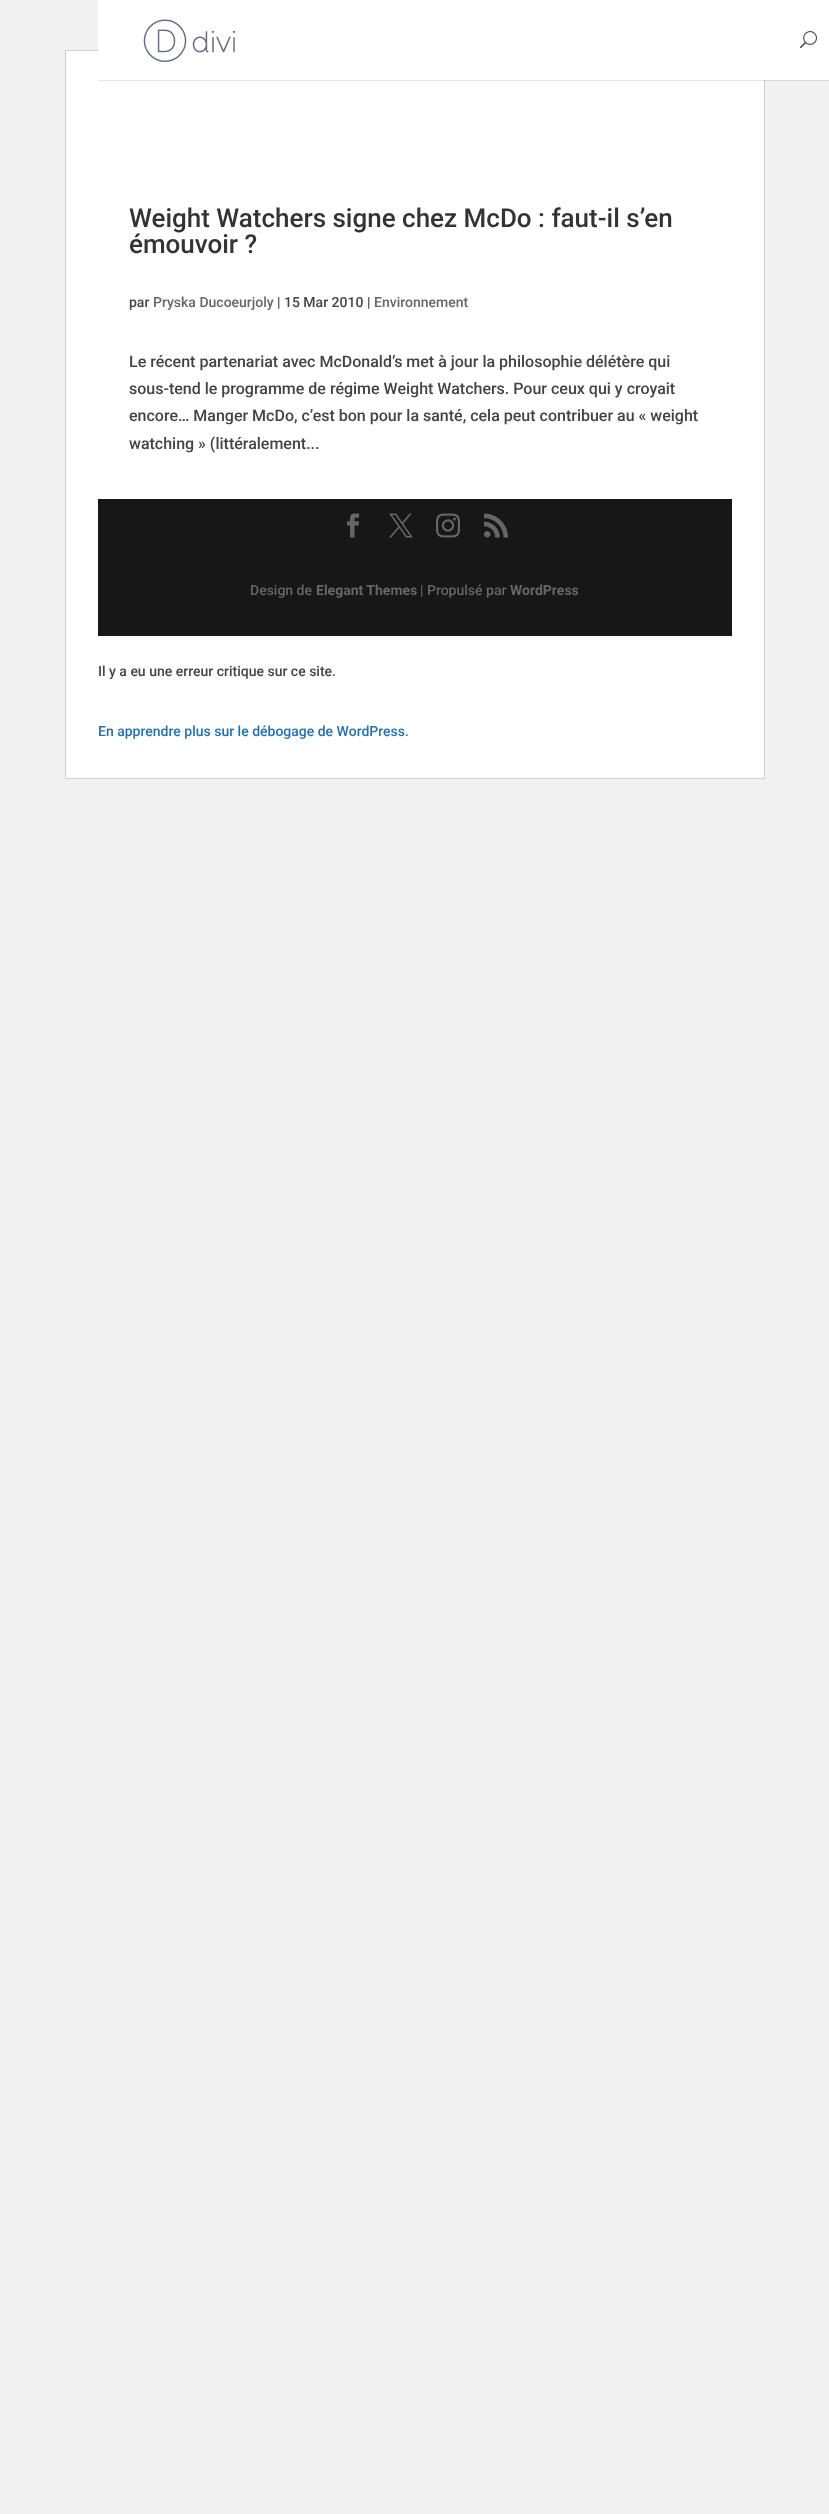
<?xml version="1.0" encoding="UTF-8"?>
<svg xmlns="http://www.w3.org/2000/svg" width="829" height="2514">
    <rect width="100%" height="100%" fill="#F1F1F1"/>
    <rect x="65.5" y="50.5" width="699" height="728" fill="#FFFFFF" stroke="#CCD0D4"/>
    <rect x="98" y="80" width="731" height="1" fill="#000000" fill-opacity="0.1"/>
    <rect x="98" y="0" width="731" height="80" fill="#FFFFFF"/>
    <image x="143" y="19" width="93" height="43" href="img_01.png"/>
    <image x="800" y="31" width="17" height="18" href="img_02.png"/>
    <text font-family="Roboto" font-size="26" font-weight="500" fill="#333333">
        <tspan x="129" y="227">Weight Watchers signe chez McDo : faut-il s’en</tspan>
        <tspan x="129" y="253">émouvoir ?</tspan>
    </text>
    <text x="129" y="307" font-family="Roboto" font-size="14" font-weight="500" fill="#444444">par</text>
    <text x="153" y="307" font-family="Roboto" font-size="14" font-weight="500" fill="#666666">Pryska Ducoeurjoly</text>
    <text x="277" y="307" font-family="Roboto" font-size="14" font-weight="500" fill="#444444">| 15 Mar 2010 |</text>
    <text x="374" y="307" font-family="Roboto" font-size="14" font-weight="500" fill="#666666">Environnement</text>
    <text font-family="Roboto" font-size="16" font-weight="500" fill="#444444">
        <tspan x="129" y="367">Le récent partenariat avec McDonald’s met à jour la philosophie délétère qui</tspan>
        <tspan x="129" y="394">sous-tend le programme de régime Weight Watchers. Pour ceux qui y croyait</tspan>
        <tspan x="129" y="421">encore… Manger McDo, c’est bon pour la santé, cela peut contribuer au « weight</tspan>
        <tspan x="129" y="449">watching » (littéralement...</tspan>
    </text>
    <rect x="98" y="499" width="634" height="137" fill="#171717"/>
    <image x="347" y="513" width="12" height="25" href="img_03.png"/>
    <image x="389" y="513" width="24" height="25" href="img_04.png"/>
    <image x="436" y="513" width="24" height="25" href="img_05.png"/>
    <image x="484" y="513" width="24" height="25" href="img_06.png"/>
    <text x="250" y="595" font-family="Roboto" font-size="14" font-weight="500" fill="#666666">Design de</text>
    <text x="316" y="595" font-family="Roboto" font-size="14" font-weight="700" fill="#666666">Elegant Themes</text>
    <text x="420" y="595" font-family="Roboto" font-size="14" font-weight="500" fill="#666666">| Propulsé par</text>
    <text x="510" y="595" font-family="Roboto" font-size="14" font-weight="700" fill="#666666">WordPress</text>
    <text x="98" y="676" font-family="Roboto" font-size="14" font-weight="500" fill="#444444">Il y a eu une erreur critique sur ce site.</text>
    <text x="98" y="736" font-family="Roboto" font-size="14" font-weight="500" fill="#2271B1">En apprendre plus sur le débogage de WordPress.</text>
</svg>
